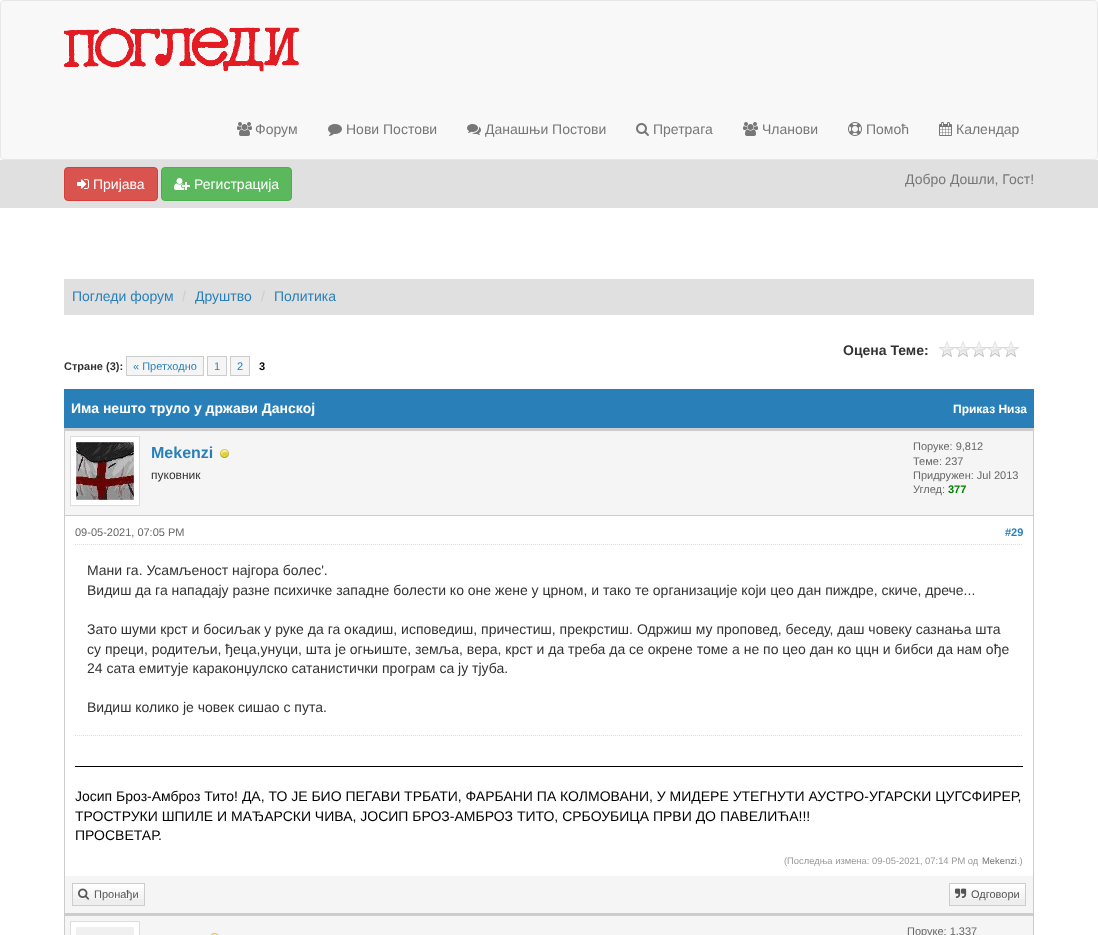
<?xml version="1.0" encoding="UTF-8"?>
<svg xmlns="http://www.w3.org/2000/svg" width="1098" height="935">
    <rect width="100%" height="100%" fill="#FFFFFF"/>
    <rect x="0.5" y="0.5" width="1097" height="159" rx="3.5" fill="#F8F8F8" stroke="#E7E7E7"/>
    <image x="64" y="27" width="235" height="45" href="img_01.png"/>
    <image x="237" y="122" width="15" height="14" href="img_02.png"/>
    <text x="255" y="134" font-family="Liberation Sans" font-size="14" fill="#777777">Форум</text>
    <image x="328" y="124" width="14" height="12" href="img_03.png"/>
    <text x="346" y="134" font-family="Liberation Sans" font-size="14" fill="#777777">Нови Постови</text>
    <image x="467" y="124" width="14" height="11" href="img_04.png"/>
    <text x="485" y="134" font-family="Liberation Sans" font-size="14" fill="#777777">Данашњи Постови</text>
    <image x="636" y="123" width="13" height="13" href="img_05.png"/>
    <text x="653" y="134" font-family="Liberation Sans" font-size="14" fill="#777777">Претрага</text>
    <image x="743" y="122" width="15" height="14" href="img_02.png"/>
    <text x="762" y="134" font-family="Liberation Sans" font-size="14" fill="#777777">Чланови</text>
    <image x="848" y="122" width="14" height="14" href="img_06.png"/>
    <text x="866" y="134" font-family="Liberation Sans" font-size="14" fill="#777777">Помоћ</text>
    <image x="939" y="122" width="13" height="14" href="img_07.png"/>
    <text x="956" y="134" font-family="Liberation Sans" font-size="14" fill="#777777">Календар</text>
    <rect x="0" y="160" width="1098" height="48" fill="#E0E0E0"/>
    <rect x="64.5" y="167.5" width="93" height="33" rx="3.5" fill="#D9534F" stroke="#D43F3A"/>
    <image x="77" y="179" width="12" height="10" href="img_08.png"/>
    <text x="93" y="189" font-family="Liberation Sans" font-size="14" fill="#FFFFFF">Пријава</text>
    <rect x="161.5" y="167.5" width="130" height="33" rx="3.5" fill="#5CB85C" stroke="#4CAE4C"/>
    <image x="174" y="178" width="16" height="12" href="img_09.png"/>
    <text x="194" y="189" font-family="Liberation Sans" font-size="14" fill="#FFFFFF">Регистрација</text>
    <text x="905" y="184" font-family="Liberation Sans" font-size="14" fill="#777777">Добро Дошли, Гост!</text>
    <rect x="64" y="279" width="970" height="36" fill="#E0E0E0"/>
    <text x="72" y="301" font-family="Liberation Sans" font-size="14" fill="#2980B9">Погледи форум</text>
    <text x="182" y="301" font-family="Liberation Sans" font-size="14" fill="#CCCCCC">/</text>
    <text x="195" y="301" font-family="Liberation Sans" font-size="14" fill="#2980B9">Друштво</text>
    <text x="261" y="301" font-family="Liberation Sans" font-size="14" fill="#CCCCCC">/</text>
    <text x="274" y="301" font-family="Liberation Sans" font-size="14" fill="#2980B9">Политика</text>
    <text x="843" y="355" font-family="Liberation Sans" font-size="14" font-weight="700" fill="#333333">Оцена Теме:</text>
    <image x="939" y="341" width="80" height="16" href="img_10.png"/>
    <text x="64" y="370" font-family="Liberation Sans" font-size="11" font-weight="700" fill="#333333">Стране (3):</text>
    <rect x="126.5" y="356.5" width="77" height="19" fill="#F5F5F5" stroke="#CCCCCC"/>
    <text x="133" y="370" font-family="Liberation Sans" font-size="11" fill="#2980B9">« Претходно</text>
    <rect x="207.5" y="356.5" width="19" height="19" fill="#F5F5F5" stroke="#CCCCCC"/>
    <text x="214" y="370" font-family="Liberation Sans" font-size="11" fill="#2980B9">1</text>
    <rect x="230.5" y="356.5" width="19" height="19" fill="#F5F5F5" stroke="#CCCCCC"/>
    <text x="237" y="370" font-family="Liberation Sans" font-size="11" fill="#2980B9">2</text>
    <text x="259" y="370" font-family="Liberation Sans" font-size="11" font-weight="700" fill="#000000">3</text>
    <rect x="64" y="389" width="970" height="39" fill="#2980B9"/>
    <text x="71" y="413" font-family="Liberation Sans" font-size="14" font-weight="700" fill="#FFFFFF">Има нешто труло у држави Данској</text>
    <text x="953" y="413" font-family="Liberation Sans" font-size="12" font-weight="700" fill="#FFFFFF">Приказ Низа</text>
    <rect x="64.5" y="428.5" width="969" height="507" fill="none" stroke="#CCCCCC"/>
    <rect x="65" y="431" width="968" height="84" fill="#F5F5F5"/>
    <rect x="65" y="429" width="968" height="2" fill="#CCCCCC"/>
    <rect x="65" y="515" width="968" height="1" fill="#CCCCCC"/>
    <rect x="70.5" y="436.5" width="69" height="69" fill="#FFFFFF" stroke="#DDDDDD"/>
    <image x="76" y="442" width="58" height="58" href="img_11.png"/>
    <text x="151" y="458" font-family="Liberation Sans" font-size="16" font-weight="700" fill="#2980B9">Mekenzi</text>
    <image x="220" y="449" width="9" height="9" href="img_12.png"/>
    <text x="151" y="479" font-family="Liberation Sans" font-size="12" fill="#333333">пуковник</text>
    <text font-family="Liberation Sans" font-size="11" fill="#666666">
        <tspan x="913" y="450">Поруке: 9,812</tspan>
        <tspan x="913" y="465">Теме: 237</tspan>
        <tspan x="913" y="479">Придружен: Jul 2013</tspan>
        <tspan x="913" y="493">Углед:</tspan>
    </text>
    <text x="948" y="493" font-family="Liberation Sans" font-size="11" font-weight="700" fill="#008000">377</text>
    <path d="M 75 544.5 H 1023" fill="none" stroke="#DDDDDD" stroke-dasharray="1 1"/>
    <text x="75" y="536" font-family="Liberation Sans" font-size="11" fill="#666666">09-05-2021, 07:05 PM</text>
    <text x="1005" y="536" font-family="Liberation Sans" font-size="11" font-weight="700" fill="#2980B9">#29</text>
    <text font-family="Liberation Sans" font-size="14" fill="#333333">
        <tspan x="87" y="575">Мани га. Усамљеност најгора болес'.</tspan>
        <tspan x="87" y="595">Видиш да га нападају разне психичке западне болести ко оне жене у црном, и тако те организације који цео дан пиждре, скиче, дрече...</tspan>
    </text>
    <text font-family="Liberation Sans" font-size="14" fill="#333333">
        <tspan x="87" y="634">Зато шуми крст и босиљак у руке да га окадиш, исповедиш, причестиш, прекрстиш. Одржиш му проповед, беседу, даш човеку сазнања шта</tspan>
        <tspan x="87" y="654">су преци, родитељи, ђеца,унуци, шта је огњиште, земља, вера, крст и да треба да се окрене томе а не по цео дан ко ццн и бибси да нам ође</tspan>
        <tspan x="87" y="673">24 сата емитује караконџулско сатанистички програм са ју тјуба.</tspan>
    </text>
    <text x="87" y="712" font-family="Liberation Sans" font-size="14" fill="#333333">Видиш колико је човек сишао с пута.</text>
    <path d="M 75 735.5 H 1023" fill="none" stroke="#DDDDDD" stroke-dasharray="1 1"/>
    <rect x="75" y="766" width="948" height="1" fill="#000000"/>
    <text font-family="Liberation Sans" font-size="14" fill="#000000">
        <tspan x="75" y="801">Јосип Броз-Амброз Тито! ДА, ТО ЈЕ БИО ПЕГАВИ ТРБАТИ, ФАРБАНИ ПА КОЛМОВАНИ, У МИДЕРЕ УТЕГНУТИ АУСТРО-УГАРСКИ ЦУГСФИРЕР,</tspan>
        <tspan x="75" y="821">ТРОСТРУКИ ШПИЛЕ И МАЂАРСКИ ЧИВА, ЈОСИП БРОЗ-АМБРОЗ ТИТО, СРБОУБИЦА ПРВИ ДО ПАВЕЛИЋА!!!</tspan>
        <tspan x="75" y="840">ПРОСВЕТАР.</tspan>
    </text>
    <text x="784" y="864" font-family="Liberation Sans" font-size="9.4" fill="#999999">(Последња измена: 09-05-2021, 07:14 PM од</text>
    <text x="982" y="864" font-family="Liberation Sans" font-size="9.4" fill="#777777">Mekenzi</text>
    <text x="1017" y="864" font-family="Liberation Sans" font-size="9.4" fill="#999999">.)</text>
    <rect x="65" y="876" width="968" height="37" fill="#F5F5F5"/>
    <rect x="65" y="913" width="968" height="3" fill="#CCCCCC"/>
    <rect x="73" y="899" width="71" height="6" fill="#EEEEEE"/>
    <image x="73" y="884" width="71" height="15" href="img_13.png"/>
    <rect x="72.5" y="883.5" width="72" height="22" fill="none" stroke="#CCCCCC"/>
    <image x="78" y="888" width="12" height="12" href="img_14.png"/>
    <text x="94" y="898" font-family="Liberation Sans" font-size="11" fill="#555555">Пронађи</text>
    <rect x="950" y="899" width="75" height="6" fill="#EEEEEE"/>
    <image x="950" y="884" width="75" height="15" href="img_15.png"/>
    <rect x="949.5" y="883.5" width="76" height="22" fill="none" stroke="#CCCCCC"/>
    <image x="955" y="888" width="12" height="10" href="img_16.png"/>
    <text x="971" y="898" font-family="Liberation Sans" font-size="11" fill="#555555">Одговори</text>
    <rect x="65" y="916" width="968" height="19" fill="#F5F5F5"/>
    <rect x="70.5" y="921.5" width="69" height="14" fill="#FFFFFF" stroke="#DDDDDD"/>
    <rect x="76" y="927" width="58" height="8" fill="#F0F0F0"/>
    <image x="210" y="933" width="9" height="2" href="img_17.png"/>
    <text x="907" y="935" font-family="Liberation Sans" font-size="11" fill="#666666">Поруке: 1,337</text>
</svg>
